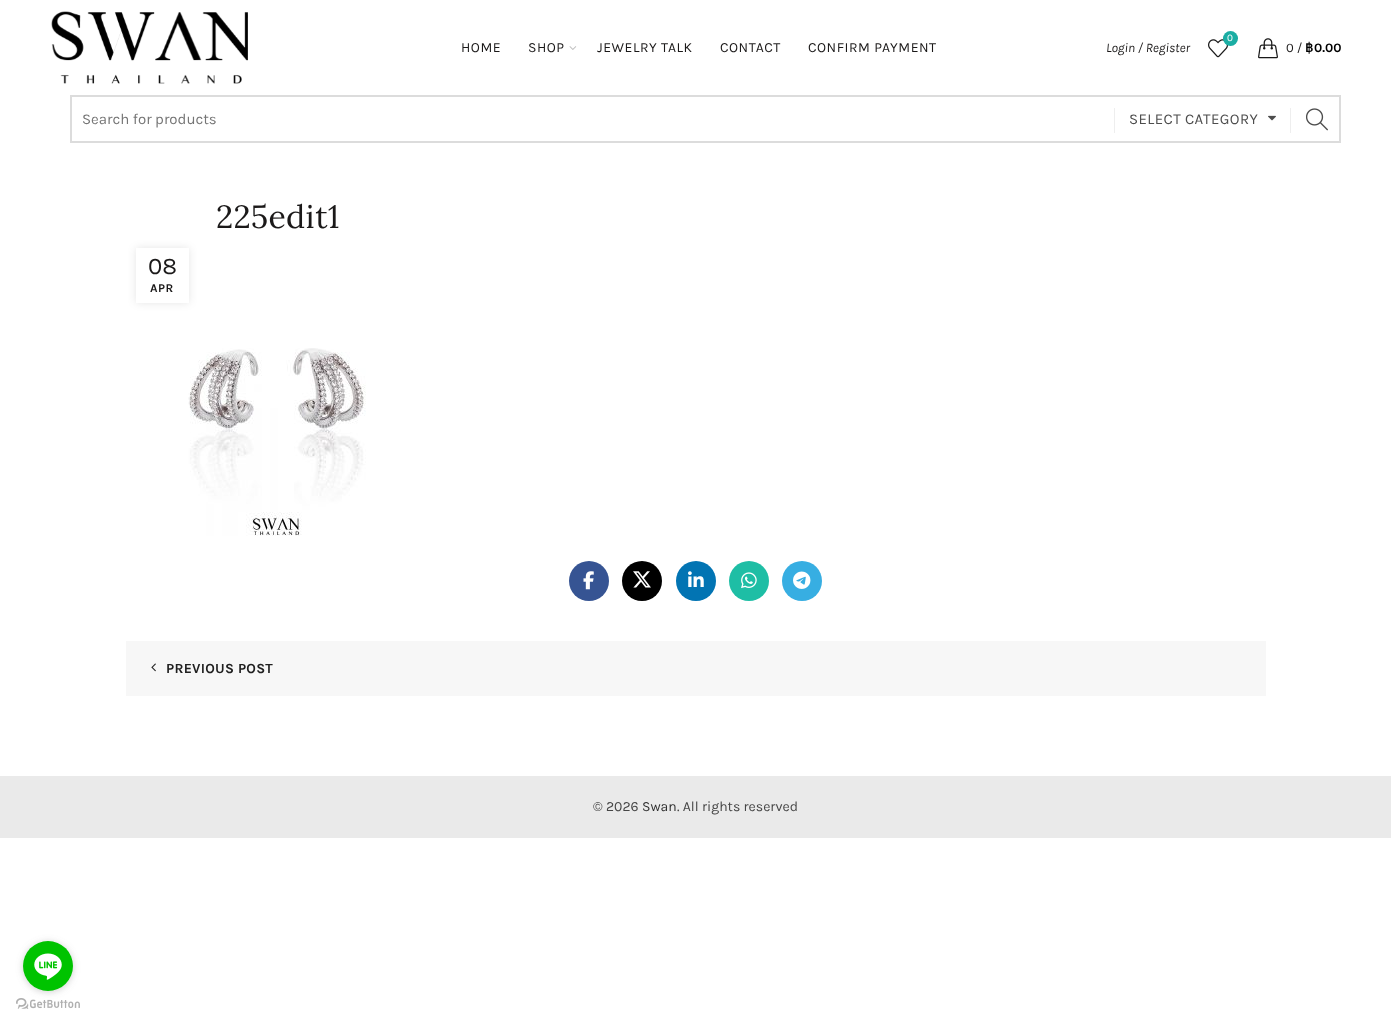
<?xml version="1.0" encoding="UTF-8"?>
<svg xmlns="http://www.w3.org/2000/svg" width="1391" height="1025">
    <defs>
        <clipPath id="clip1"><path d="M 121 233 H 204 V 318 H 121 Z M 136 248 H 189 V 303 H 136 Z" clip-rule="evenodd"/></clipPath>
        <filter id="blur1" x="-50%" y="-200%" width="200%" height="500%"><feGaussianBlur stdDeviation="4.5"/></filter>
        <filter id="blur2" x="-50%" y="-200%" width="200%" height="500%"><feGaussianBlur stdDeviation="3.5"/></filter>
    </defs>
    <rect width="100%" height="100%" fill="#FFFFFF"/>
    <image x="51" y="11" width="197" height="73" href="img_01.png"/>
    <text x="461" y="52" font-family="Karla" font-size="14" letter-spacing="0.5" fill="#1B1919">HOME</text>
    <text x="528" y="52" font-family="Karla" font-size="14" letter-spacing="0.5" fill="#1B1919">SHOP</text>
    <image x="569" y="46" width="8" height="4" href="img_02.png"/>
    <text x="597" y="52" font-family="Karla" font-size="14" letter-spacing="0.5" fill="#1B1919">JEWELRY TALK</text>
    <text x="720" y="52" font-family="Karla" font-size="14" letter-spacing="0.5" fill="#1B1919">CONTACT</text>
    <text x="808" y="52" font-family="Karla" font-size="14" letter-spacing="0.5" fill="#1B1919">CONFIRM PAYMENT</text>
    <image x="1208" y="39" width="20" height="19" href="img_03.png"/>
    <circle cx="1230.5" cy="38.5" r="7.5" fill="#1AADA3"/>
    <text x="1227" y="41" font-family="Karla" font-size="10" fill="#FFFFFF">0</text>
    <text x="1106" y="52" font-family="Karla" font-size="13" font-style="italic" fill="#1B1919">Login / Register</text>
    <image x="1258" y="38" width="20" height="21" href="img_04.png"/>
    <text x="1286" y="52" font-family="Karla" font-size="13" fill="#1B1919">0 /</text>
    <text x="1305" y="52" font-family="DejaVu Sans" font-size="13" font-weight="700" fill="#000000">฿</text>
    <text x="1314" y="52" font-family="Karla" font-size="13" font-weight="700" fill="#000000">0.00</text>
    <rect x="71" y="96" width="1269" height="46" fill="none" stroke="#DCDCDC" stroke-width="2"/>
    <text x="82" y="124" font-family="Karla" font-size="15" fill="#757575">Search for products</text>
    <rect x="1114" y="108" width="1" height="25" fill="#EEEEEE"/>
    <text x="1129" y="124" font-family="Karla" font-size="15" letter-spacing="0.4" fill="#4D4D4D">SELECT CATEGORY</text>
    <image x="1268" y="115" width="8" height="6" href="img_05.png"/>
    <rect x="1290" y="108" width="1" height="25" fill="#EEEEEE"/>
    <image x="1306" y="108" width="22" height="23" href="img_06.png"/>
    <text x="216" y="228" font-family="Lora" font-size="32" letter-spacing="0.25" fill="#1B1919">225edit1</text>
    <g clip-path="url(#clip1)">
        <rect x="136" y="248" width="53" height="55" fill="#000000" fill-opacity="0.1" filter="url(#blur1)"/>
    </g>
    <text x="148" y="274" font-family="Karla" font-size="24" fill="#1B1919">08</text>
    <text x="150" y="292" font-family="Karla" font-size="12" font-weight="700" letter-spacing="0.5" fill="#1B1919">APR</text>
    <image x="188" y="348" width="178" height="188" href="img_07.png"/>
    <circle cx="589" cy="581" r="20" fill="#365493"/>
    <image x="583" y="571" width="11" height="19" href="img_08.png"/>
    <circle cx="642" cy="581" r="20" fill="#000000"/>
    <image x="633" y="571" width="18" height="17" href="img_09.png"/>
    <circle cx="696" cy="581" r="20" fill="#0274B3"/>
    <image x="688" y="571" width="16" height="16" href="img_10.png"/>
    <circle cx="749" cy="581" r="20" fill="#1EBEA5"/>
    <image x="741" y="572" width="16" height="17" href="img_11.png"/>
    <circle cx="802" cy="581" r="20" fill="#37AEE2"/>
    <image x="793" y="571" width="18" height="18" href="img_12.png"/>
    <rect x="126" y="641" width="1140" height="55" fill="#F7F7F7"/>
    <image x="151" y="663" width="5" height="9" href="img_13.png"/>
    <text x="166" y="673" font-family="Karla" font-size="14" font-weight="700" letter-spacing="0.25" fill="#202020">PREVIOUS POST</text>
    <rect x="0" y="776" width="1391" height="62" fill="#EAEAEA"/>
    <text x="593" y="811" font-family="Karla" font-size="14" fill="#464646">© 2026</text>
    <text x="642" y="811" font-family="Karla" font-size="14" fill="#2F2F2F">Swan</text>
    <text x="677" y="811" font-family="Karla" font-size="14" fill="#464646">. All rights reserved</text>
    <image x="16" y="998" width="64" height="11" href="img_15.png"/>
    <rect x="23" y="942" width="50" height="50" rx="25" fill="#888888" fill-opacity="0.4" filter="url(#blur2)"/>
    <circle cx="48" cy="966" r="25" fill="#00C300"/>
    <image x="34" y="953" width="28" height="27" href="img_14.png"/>
</svg>
